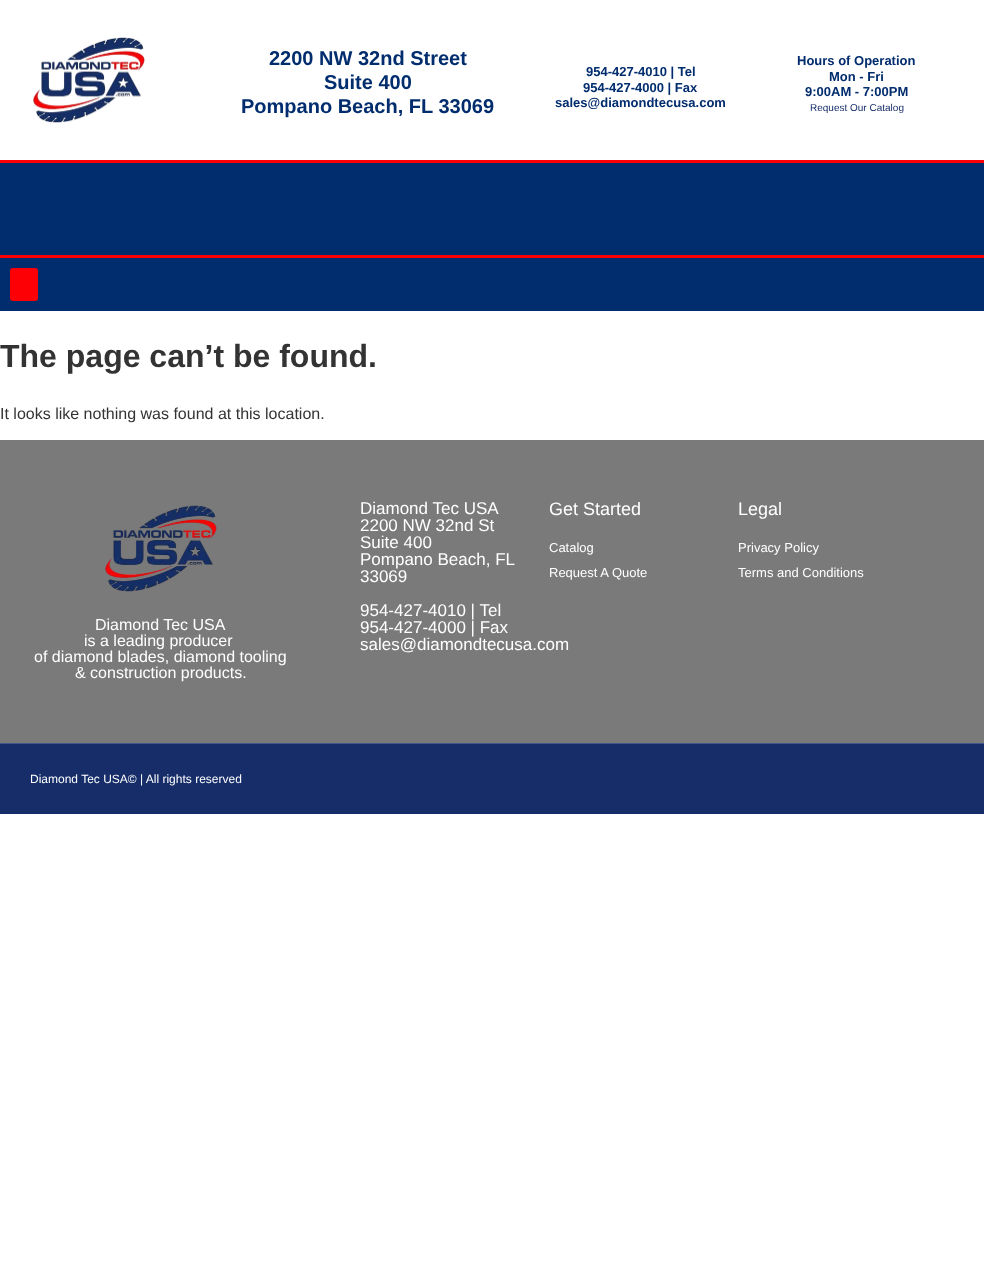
<?xml version="1.0" encoding="UTF-8"?>
<svg xmlns="http://www.w3.org/2000/svg" width="984" height="1278">
    <rect width="100%" height="100%" fill="#FFFFFF"/>
    <image x="33" y="37" width="112" height="86" href="img_01.png"/>
    <text x="269" y="65" font-family="Liberation Sans" font-size="20" font-weight="700" fill="#012C6D">2200 NW 32nd Street</text>
    <text x="324" y="89" font-family="Liberation Sans" font-size="20" font-weight="700" fill="#012C6D">Suite 400</text>
    <text x="241" y="113" font-family="Liberation Sans" font-size="20" font-weight="700" fill="#012C6D">Pompano Beach, FL 33069</text>
    <text x="586" y="76" font-family="Liberation Sans" font-size="13" font-weight="700" fill="#012C6D">954-427-4010 | Tel</text>
    <text x="583" y="92" font-family="Liberation Sans" font-size="13" font-weight="700" fill="#012C6D">954-427-4000 | Fax</text>
    <text x="555" y="107" font-family="Liberation Sans" font-size="13" font-weight="700" fill="#012C6D">sales@diamondtecusa.com</text>
    <text x="797" y="65" font-family="Liberation Sans" font-size="13" font-weight="700" fill="#012C6D">Hours of Operation</text>
    <text x="829" y="81" font-family="Liberation Sans" font-size="13" font-weight="700" fill="#012C6D">Mon - Fri</text>
    <text x="805" y="96" font-family="Liberation Sans" font-size="13" font-weight="700" fill="#012C6D">9:00AM - 7:00PM</text>
    <text x="810" y="111" font-family="Liberation Sans" font-size="10" fill="#162D69">Request Our Catalog</text>
    <rect x="0" y="163" width="984" height="92" fill="#012C6D"/>
    <rect x="0" y="160" width="984" height="3" fill="#FD0005"/>
    <rect x="0" y="258" width="984" height="53" fill="#012C6D"/>
    <rect x="0" y="255" width="984" height="3" fill="#FD0005"/>
    <rect x="10" y="268" width="28" height="33" rx="3" fill="#FD0005"/>
    <text x="0" y="367" font-family="Liberation Sans" font-size="32" font-weight="700" fill="#333333">The page can’t be found.</text>
    <text x="0" y="419" font-family="Liberation Sans" font-size="16" fill="#333333">It looks like nothing was found at this location.</text>
    <rect x="0" y="440" width="984" height="303" fill="#7A7A7A"/>
    <text font-family="Liberation Sans" font-size="17" fill="#FFFFFF">
        <tspan x="360" y="514">Diamond Tec USA</tspan>
        <tspan x="360" y="531">2200 NW 32nd St</tspan>
        <tspan x="360" y="548">Suite 400</tspan>
        <tspan x="360" y="565">Pompano Beach, FL</tspan>
        <tspan x="360" y="582">33069</tspan>
    </text>
    <text font-family="Liberation Sans" font-size="17" fill="#FFFFFF">
        <tspan x="360" y="616">954-427-4010 | Tel</tspan>
        <tspan x="360" y="633">954-427-4000 | Fax</tspan>
        <tspan x="360" y="650">sales@diamondtecusa.com</tspan>
    </text>
    <text x="549" y="515" font-family="Liberation Sans" font-size="18" fill="#FFFFFF">Get Started</text>
    <text font-family="Liberation Sans" font-size="13" fill="#FFFFFF">
        <tspan x="549" y="552">Catalog</tspan>
        <tspan x="549" y="577">Request A Quote</tspan>
    </text>
    <text x="738" y="515" font-family="Liberation Sans" font-size="18" fill="#FFFFFF">Legal</text>
    <text font-family="Liberation Sans" font-size="13" fill="#FFFFFF">
        <tspan x="738" y="552">Privacy Policy</tspan>
        <tspan x="738" y="577">Terms and Conditions</tspan>
    </text>
    <image x="105" y="505" width="112" height="87" href="img_02.png"/>
    <text x="95" y="630" font-family="Liberation Sans" font-size="16" fill="#FFFFFF">Diamond Tec USA</text>
    <text x="84" y="646" font-family="Liberation Sans" font-size="16" fill="#FFFFFF">is a leading producer</text>
    <text x="34" y="662" font-family="Liberation Sans" font-size="16" fill="#FFFFFF">of diamond blades, diamond tooling</text>
    <text x="75" y="678" font-family="Liberation Sans" font-size="16" fill="#FFFFFF">&amp; construction products.</text>
    <rect x="0" y="744" width="984" height="70" fill="#162D69"/>
    <rect x="0" y="743" width="984" height="1" fill="#425586"/>
    <text x="30" y="783" font-family="Liberation Sans" font-size="12" fill="#FFFFFF">Diamond Tec USA© | All rights reserved</text>
</svg>
